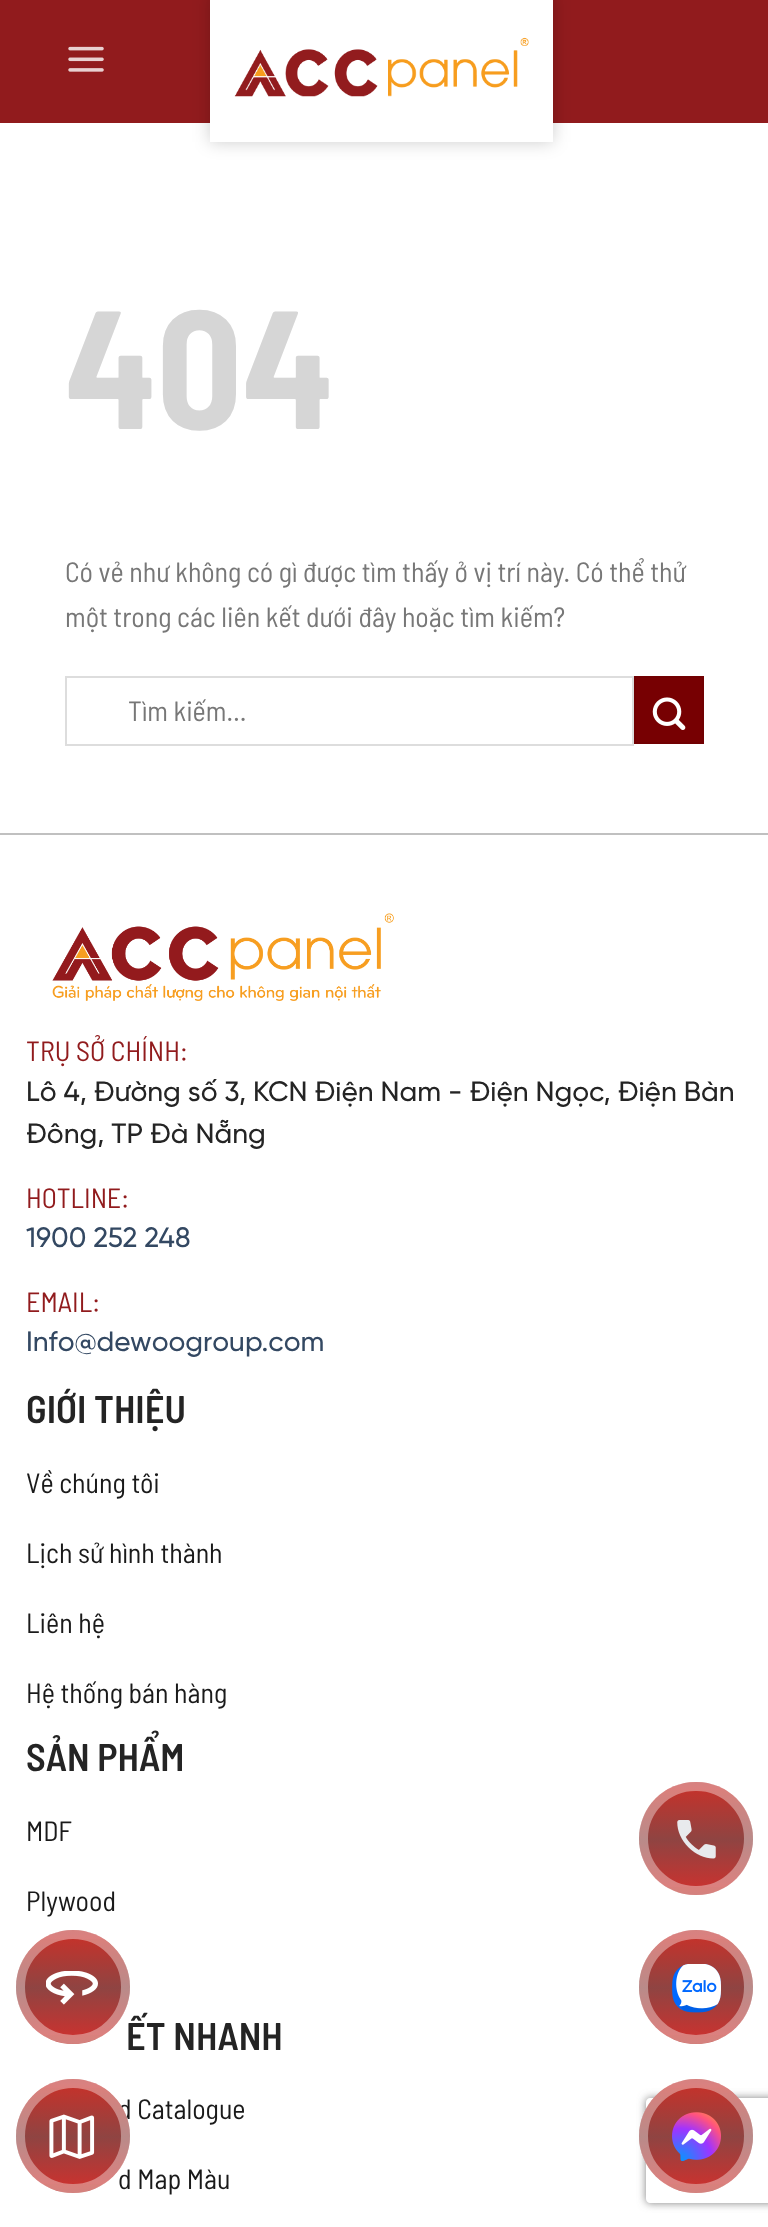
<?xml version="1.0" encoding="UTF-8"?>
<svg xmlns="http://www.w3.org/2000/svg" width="768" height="2227">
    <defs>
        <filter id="blur1" x="-50%" y="-200%" width="200%" height="500%"><feGaussianBlur stdDeviation="8.5"/></filter>
        <clipPath id="clip1"><rect x="16" y="1930" width="114" height="114" rx="57"/></clipPath>
        <linearGradient id="g1" gradientUnits="userSpaceOnUse" x1="73" y1="1843" x2="73" y2="1939"><stop offset="0" stop-color="#C2332C"/><stop offset="0.51" stop-color="#8F4442"/><stop offset="1" stop-color="#C73330"/></linearGradient>
        <linearGradient id="g2" gradientUnits="userSpaceOnUse" x1="73" y1="1939" x2="73" y2="2035"><stop offset="0" stop-color="#C2332C"/><stop offset="0.51" stop-color="#8F4442"/><stop offset="1" stop-color="#C73330"/></linearGradient>
        <linearGradient id="g3" gradientUnits="userSpaceOnUse" x1="73" y1="2035" x2="73" y2="2132"><stop offset="0" stop-color="#C2332C"/><stop offset="0.51" stop-color="#8F4442"/><stop offset="1" stop-color="#C73330"/></linearGradient>
        <clipPath id="clip2"><rect x="16" y="2079" width="114" height="114" rx="57"/></clipPath>
        <linearGradient id="g4" gradientUnits="userSpaceOnUse" x1="73" y1="1992" x2="73" y2="2088"><stop offset="0" stop-color="#C2332C"/><stop offset="0.51" stop-color="#8F4442"/><stop offset="1" stop-color="#C73330"/></linearGradient>
        <linearGradient id="g5" gradientUnits="userSpaceOnUse" x1="73" y1="2088" x2="73" y2="2184"><stop offset="0" stop-color="#C2332C"/><stop offset="0.51" stop-color="#8F4442"/><stop offset="1" stop-color="#C73330"/></linearGradient>
        <linearGradient id="g6" gradientUnits="userSpaceOnUse" x1="73" y1="2184" x2="73" y2="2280"><stop offset="0" stop-color="#C2332C"/><stop offset="0.51" stop-color="#8F4442"/><stop offset="1" stop-color="#C73330"/></linearGradient>
        <clipPath id="clip3"><rect x="639" y="1782" width="114" height="113" rx="56.5"/></clipPath>
        <linearGradient id="g7" gradientUnits="userSpaceOnUse" x1="696" y1="1694" x2="696" y2="1790"><stop offset="0" stop-color="#C2332C"/><stop offset="0.51" stop-color="#8F4442"/><stop offset="1" stop-color="#C73330"/></linearGradient>
        <linearGradient id="g8" gradientUnits="userSpaceOnUse" x1="696" y1="1790" x2="696" y2="1887"><stop offset="0" stop-color="#C2332C"/><stop offset="0.51" stop-color="#8F4442"/><stop offset="1" stop-color="#C73330"/></linearGradient>
        <linearGradient id="g9" gradientUnits="userSpaceOnUse" x1="696" y1="1887" x2="696" y2="1983"><stop offset="0" stop-color="#C2332C"/><stop offset="0.51" stop-color="#8F4442"/><stop offset="1" stop-color="#C73330"/></linearGradient>
        <clipPath id="clip4"><rect x="639" y="1930" width="114" height="114" rx="57"/></clipPath>
        <linearGradient id="g10" gradientUnits="userSpaceOnUse" x1="696" y1="1843" x2="696" y2="1939"><stop offset="0" stop-color="#C2332C"/><stop offset="0.51" stop-color="#8F4442"/><stop offset="1" stop-color="#C73330"/></linearGradient>
        <linearGradient id="g11" gradientUnits="userSpaceOnUse" x1="696" y1="1939" x2="696" y2="2035"><stop offset="0" stop-color="#C2332C"/><stop offset="0.51" stop-color="#8F4442"/><stop offset="1" stop-color="#C73330"/></linearGradient>
        <linearGradient id="g12" gradientUnits="userSpaceOnUse" x1="696" y1="2035" x2="696" y2="2132"><stop offset="0" stop-color="#C2332C"/><stop offset="0.51" stop-color="#8F4442"/><stop offset="1" stop-color="#C73330"/></linearGradient>
        <clipPath id="clip5"><path d="M 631 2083 H 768 V 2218 H 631 Z M 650 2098 H 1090 C 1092 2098 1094 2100 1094 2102 V 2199 C 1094 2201 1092 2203 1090 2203 H 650 C 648 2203 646 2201 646 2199 V 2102 C 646 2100 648 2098 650 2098 Z" clip-rule="evenodd"/></clipPath>
        <filter id="blur2" x="-50%" y="-200%" width="200%" height="500%"><feGaussianBlur stdDeviation="4.5"/></filter>
        <clipPath id="clip6"><rect x="639" y="2079" width="114" height="114" rx="57"/></clipPath>
        <linearGradient id="g13" gradientUnits="userSpaceOnUse" x1="696" y1="1992" x2="696" y2="2088"><stop offset="0" stop-color="#C2332C"/><stop offset="0.51" stop-color="#8F4442"/><stop offset="1" stop-color="#C73330"/></linearGradient>
        <linearGradient id="g14" gradientUnits="userSpaceOnUse" x1="696" y1="2088" x2="696" y2="2184"><stop offset="0" stop-color="#C2332C"/><stop offset="0.51" stop-color="#8F4442"/><stop offset="1" stop-color="#C73330"/></linearGradient>
        <linearGradient id="g15" gradientUnits="userSpaceOnUse" x1="696" y1="2184" x2="696" y2="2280"><stop offset="0" stop-color="#C2332C"/><stop offset="0.51" stop-color="#8F4442"/><stop offset="1" stop-color="#C73330"/></linearGradient>
    </defs>
    <rect width="100%" height="100%" fill="#FFFFFF"/>
    <rect x="0" y="0" width="768" height="123" fill="#911B1D"/>
    <image x="68" y="46" width="36" height="26" href="img_01.png"/>
    <rect x="210" y="-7" width="343" height="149" fill="#000000" fill-opacity="0.2" filter="url(#blur1)"/>
    <rect x="210" y="0" width="343" height="142" fill="#FFFFFF"/>
    <image x="234" y="37" width="295" height="60" href="img_02.png"/>
    <text x="65" y="429" font-family="Barlow Semi Condensed" font-size="168" font-weight="700" fill="#D6D6D6">404</text>
    <text font-family="Barlow Semi Condensed" font-size="28" fill="#777777">
        <tspan x="65" y="582">Có vẻ như không có gì được tìm thấy ở vị trí này. Có thể thử</tspan>
        <tspan x="65" y="627">một trong các liên kết dưới đây hoặc tìm kiếm?</tspan>
    </text>
    <rect x="66" y="677" width="567" height="68" fill="none" stroke="#DDDDDD" stroke-width="2"/>
    <text x="128" y="721" font-family="Barlow Semi Condensed" font-size="28" fill="#777777">Tìm kiếm…</text>
    <rect x="635" y="677" width="68" height="66" fill="#770002" stroke="#710002" stroke-width="2"/>
    <image x="652" y="697" width="34" height="33" href="img_03.png"/>
    <rect x="0" y="833" width="768" height="2" fill="#C0C0C0"/>
    <image x="52" y="913" width="342" height="88" href="img_04.png"/>
    <text x="26" y="1061" font-family="Barlow Semi Condensed" font-size="28" fill="#911B1D">TRỤ SỞ CHÍNH:</text>
    <text font-family="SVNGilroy" font-size="28" font-weight="500" fill="#242424">
        <tspan x="26" y="1101">Lô 4, Đường số 3, KCN Điện Nam - Điện Ngọc, Điện Bàn</tspan>
        <tspan x="26" y="1143">Đông, TP Đà Nẵng</tspan>
    </text>
    <text x="26" y="1208" font-family="Barlow Semi Condensed" font-size="28" fill="#911B1D">HOTLINE:</text>
    <text x="26" y="1247" font-family="SVNGilroy" font-size="28" font-weight="500" fill="#334862">1900 252 248</text>
    <text x="26" y="1312" font-family="Barlow Semi Condensed" font-size="28" fill="#911B1D">EMAIL:</text>
    <text x="26" y="1351" font-family="SVNGilroy" font-size="28" font-weight="500" fill="#334862">Info@dewoogroup.com</text>
    <text x="26" y="1423" font-family="Barlow Semi Condensed" font-size="38.5" font-weight="600" fill="#242424">GIỚI THIỆU</text>
    <text x="26" y="1493" font-family="Barlow Semi Condensed" font-size="28" fill="#1A1A1A">Về chúng tôi</text>
    <text x="26" y="1563" font-family="Barlow Semi Condensed" font-size="28" fill="#1A1A1A">Lịch sử hình thành</text>
    <text x="26" y="1633" font-family="Barlow Semi Condensed" font-size="28" fill="#1A1A1A">Liên hệ</text>
    <text x="26" y="1703" font-family="Barlow Semi Condensed" font-size="28" fill="#1A1A1A">Hệ thống bán hàng</text>
    <text x="26" y="1771" font-family="Barlow Semi Condensed" font-size="38.5" font-weight="600" fill="#242424">SẢN PHẨM</text>
    <text x="26" y="1841" font-family="Barlow Semi Condensed" font-size="28" fill="#1A1A1A">MDF</text>
    <text x="26" y="1911" font-family="Barlow Semi Condensed" font-size="28" fill="#1A1A1A">Plywood</text>
    <text x="126" y="2050" font-family="Barlow Semi Condensed" font-size="38.5" font-weight="600" fill="#242424">ẾT NHANH</text>
    <text x="118" y="2119" font-family="Barlow Semi Condensed" font-size="28" fill="#1A1A1A">d Catalogue</text>
    <text x="118" y="2189" font-family="Barlow Semi Condensed" font-size="28" fill="#1A1A1A">d Map Màu</text>
    <g clip-path="url(#clip1)">
        <rect x="42" y="1930" width="62" height="9" fill="url(#g1)"/>
        <rect x="16" y="1939" width="114" height="96" fill="url(#g2)"/>
        <rect x="42" y="2035" width="62" height="9" fill="url(#g3)"/>
    </g>
    <circle cx="73" cy="1987" r="52.5" fill="none" stroke="#FFFFFF" stroke-opacity="0.38" stroke-width="9"/>
    <image x="46" y="1971" width="52" height="34" href="img_05.png"/>
    <g clip-path="url(#clip2)">
        <rect x="42" y="2079" width="62" height="9" fill="url(#g4)"/>
        <rect x="16" y="2088" width="114" height="96" fill="url(#g5)"/>
        <rect x="42" y="2184" width="62" height="9" fill="url(#g6)"/>
    </g>
    <circle cx="73" cy="2136" r="52.5" fill="none" stroke="#FFFFFF" stroke-opacity="0.38" stroke-width="9"/>
    <image x="49" y="2114" width="46" height="45" href="img_06.png"/>
    <g clip-path="url(#clip3)">
        <rect x="666" y="1782" width="60" height="8" fill="url(#g7)"/>
        <rect x="639" y="1790" width="114" height="97" fill="url(#g8)"/>
        <rect x="666" y="1887" width="60" height="8" fill="url(#g9)"/>
    </g>
    <rect x="643.5" y="1786.5" width="105" height="104" rx="52" fill="none" stroke="#FFFFFF" stroke-opacity="0.38" stroke-width="9"/>
    <image x="677" y="1820" width="39" height="39" href="img_07.png"/>
    <g clip-path="url(#clip4)">
        <rect x="665" y="1930" width="62" height="9" fill="url(#g10)"/>
        <rect x="639" y="1939" width="114" height="96" fill="url(#g11)"/>
        <rect x="665" y="2035" width="62" height="9" fill="url(#g12)"/>
    </g>
    <circle cx="696" cy="1987" r="52.5" fill="none" stroke="#FFFFFF" stroke-opacity="0.38" stroke-width="9"/>
    <image x="672" y="1964" width="49" height="49" href="img_08.png"/>
    <g clip-path="url(#clip5)">
        <rect x="646" y="2098" width="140" height="105" rx="4" fill="#808080" filter="url(#blur2)"/>
    </g>
    <g clip-path="url(#clip6)">
        <rect x="665" y="2079" width="62" height="9" fill="url(#g13)"/>
        <rect x="639" y="2088" width="114" height="96" fill="url(#g14)"/>
        <rect x="665" y="2184" width="62" height="9" fill="url(#g15)"/>
    </g>
    <circle cx="696" cy="2136" r="52.5" fill="none" stroke="#FFFFFF" stroke-opacity="0.38" stroke-width="9"/>
    <image x="672" y="2112" width="49" height="49" href="img_09.png"/>
</svg>
